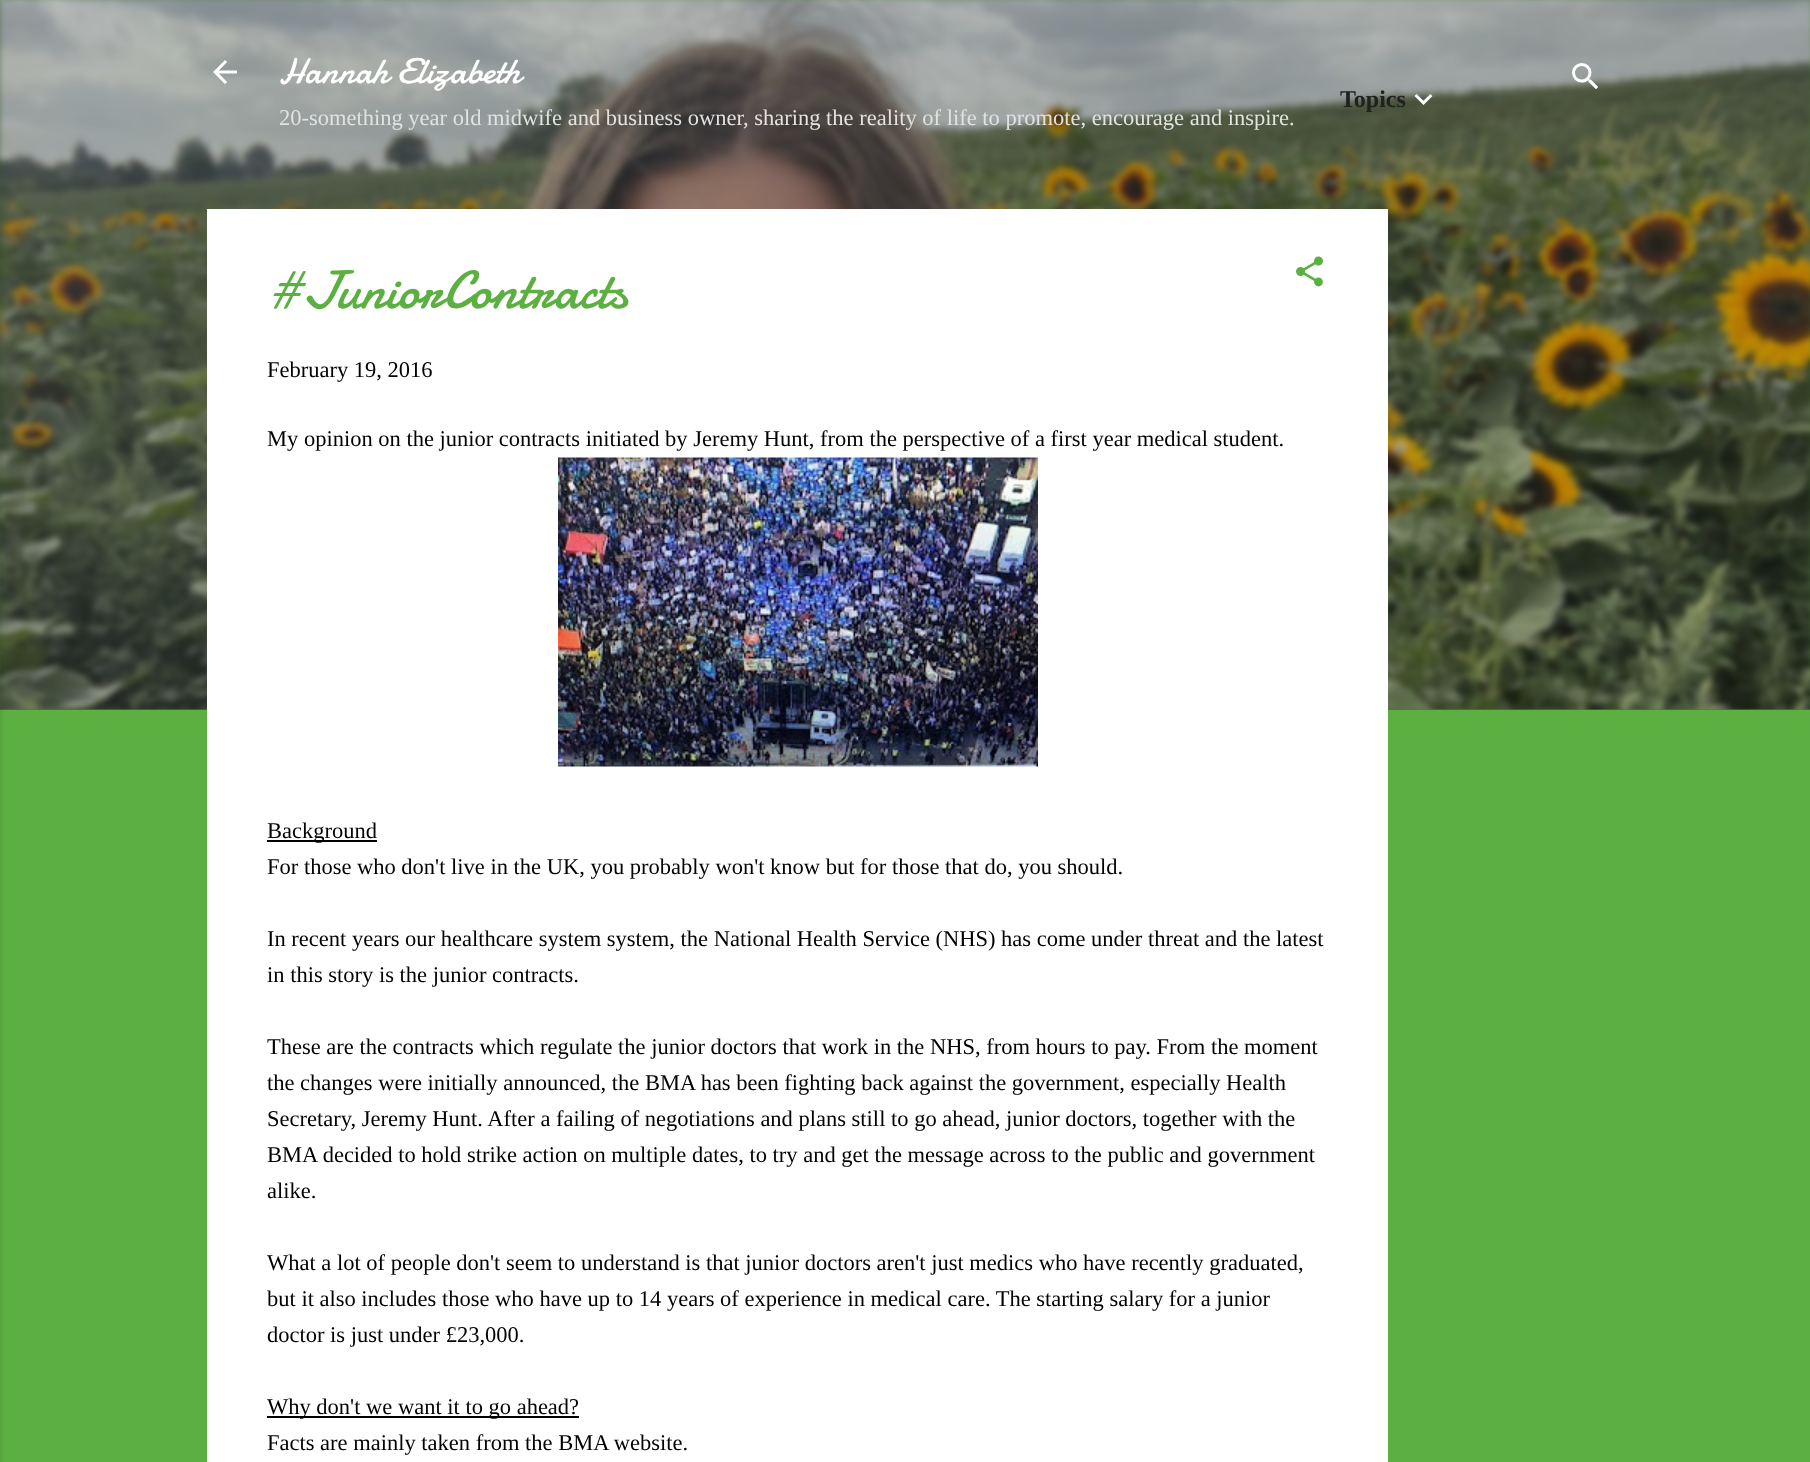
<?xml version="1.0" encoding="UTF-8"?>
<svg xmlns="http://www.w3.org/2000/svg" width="1810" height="1462">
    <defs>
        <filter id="blur1" x="-50%" y="-200%" width="200%" height="500%"><feGaussianBlur stdDeviation="2"/></filter>
    </defs>
    <rect width="100%" height="100%" fill="#5CB042"/>
    <rect x="0" y="0" width="1810" height="710" fill="#448231"/>
    <image x="0" y="0" width="1810" height="710" href="img_01.png"/>
    <rect x="-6" y="2" width="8" height="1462" fill="#000000" fill-opacity="0.1" filter="url(#blur1)"/>
    <image x="213" y="60" width="24" height="24" href="img_02.png"/>
    <text x="279" y="83" font-family="Damion" font-size="36" fill="#FFFFFF">Hannah Elizabeth</text>
    <text x="279" y="125" font-family="Liberation Serif" font-size="22.5" fill="#E2E2E0">20-something year old midwife and business owner, sharing the reality of life to promote, encourage and inspire.</text>
    <text x="1340" y="107" font-family="Liberation Serif" font-size="24" font-weight="700" fill="#212121">Topics</text>
    <image x="1414" y="94" width="19" height="11" href="img_03.png"/>
    <image x="1572" y="63" width="26" height="27" href="img_04.png"/>
    <rect x="207" y="209" width="1181" height="1253" fill="#FFFFFF"/>
    <text x="267" y="308" font-family="Damion" font-size="54" fill="#5CB042">#JuniorContracts</text>
    <image x="1296" y="256" width="27" height="31" href="img_05.png"/>
    <text x="267" y="377" font-family="Liberation Serif" font-size="22.5" fill="#000000">February 19, 2016</text>
    <text x="267" y="446" font-family="Liberation Serif" font-size="22.5" fill="#000000">My opinion on the junior contracts initiated by Jeremy Hunt, from the perspective of a first year medical student.</text>
    <image x="558" y="457" width="480" height="310" href="img_06.png"/>
    <rect x="267" y="840" width="110" height="2" fill="#000000"/>
    <text font-family="Liberation Serif" font-size="22.5" fill="#000000">
        <tspan x="267" y="838">Background</tspan>
        <tspan x="267" y="874">For those who don't live in the UK, you probably won't know but for those that do, you should.</tspan>
    </text>
    <text font-family="Liberation Serif" font-size="22.5" fill="#000000">
        <tspan x="267" y="946">In recent years our healthcare system system, the National Health Service (NHS) has come under threat and the latest</tspan>
        <tspan x="267" y="982">in this story is the junior contracts.</tspan>
    </text>
    <text font-family="Liberation Serif" font-size="22.5" fill="#000000">
        <tspan x="267" y="1054">These are the contracts which regulate the junior doctors that work in the NHS, from hours to pay. From the moment</tspan>
        <tspan x="267" y="1090">the changes were initially announced, the BMA has been fighting back against the government, especially Health</tspan>
        <tspan x="267" y="1126">Secretary, Jeremy Hunt. After a failing of negotiations and plans still to go ahead, junior doctors, together with the</tspan>
        <tspan x="267" y="1162">BMA decided to hold strike action on multiple dates, to try and get the message across to the public and government</tspan>
        <tspan x="267" y="1198">alike.</tspan>
    </text>
    <text font-family="Liberation Serif" font-size="22.5" fill="#000000">
        <tspan x="267" y="1270">What a lot of people don't seem to understand is that junior doctors aren't just medics who have recently graduated,</tspan>
        <tspan x="267" y="1306">but it also includes those who have up to 14 years of experience in medical care. The starting salary for a junior</tspan>
        <tspan x="267" y="1342">doctor is just under £23,000.</tspan>
    </text>
    <rect x="267" y="1416" width="312" height="2" fill="#000000"/>
    <text font-family="Liberation Serif" font-size="22.5" fill="#000000">
        <tspan x="267" y="1414">Why don't we want it to go ahead?</tspan>
        <tspan x="267" y="1450">Facts are mainly taken from the BMA website.</tspan>
    </text>
</svg>
